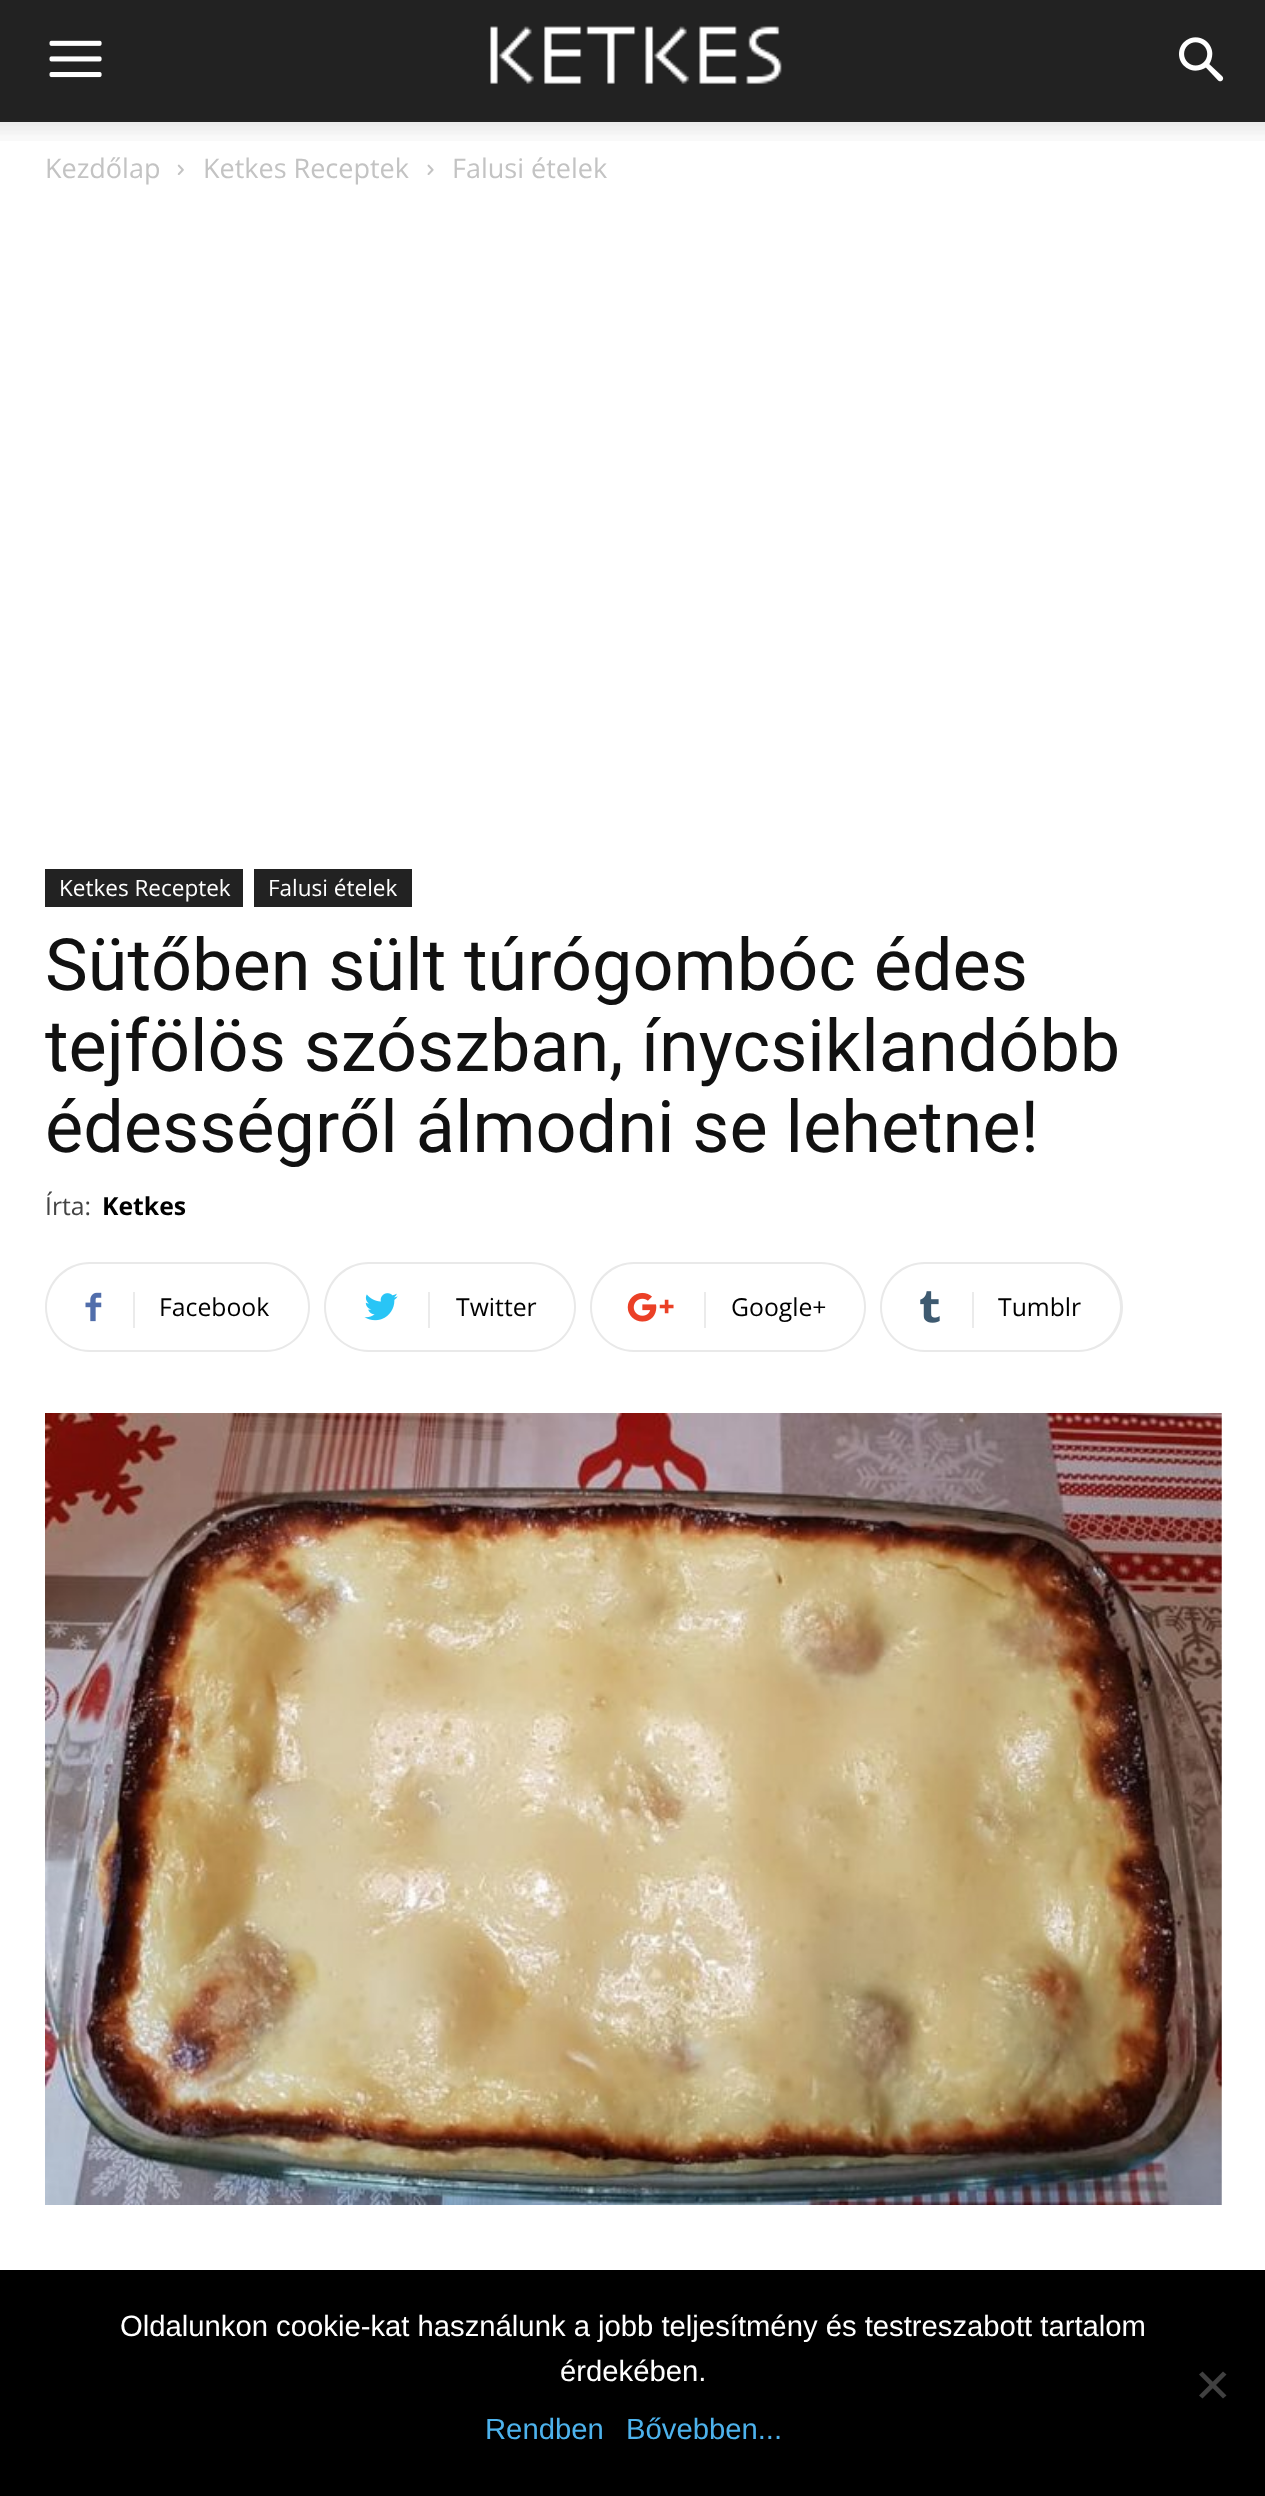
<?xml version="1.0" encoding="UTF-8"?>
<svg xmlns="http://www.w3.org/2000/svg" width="1265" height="2496">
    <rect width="100%" height="100%" fill="#FFFFFF"/>
    <rect x="0" y="0" width="1265" height="122" fill="#222222"/>
    <image x="49" y="40" width="53" height="38" href="img_01.png"/>
    <image x="490" y="26" width="292" height="58" href="img_02.png"/>
    <image x="1179" y="37" width="45" height="45" href="img_03.png"/>
    <image x="0" y="122" width="1265" height="19" href="img_04.png"/>
    <text x="45" y="178" font-family="Open Sans" font-size="27" fill="#C3C3C3">Kezdőlap</text>
    <image x="177" y="164" width="7" height="11" href="img_05.png"/>
    <text x="203" y="178" font-family="Open Sans" font-size="27" fill="#C3C3C3">Ketkes Receptek</text>
    <image x="427" y="164" width="7" height="11" href="img_06.png"/>
    <text x="452" y="178" font-family="Open Sans" font-size="27" fill="#C3C3C3">Falusi ételek</text>
    <rect x="45" y="869" width="198" height="38" fill="#222222"/>
    <text x="59" y="896" font-family="Open Sans" font-size="22.5" fill="#FFFFFF">Ketkes Receptek</text>
    <rect x="254" y="869" width="158" height="38" fill="#222222"/>
    <text x="268" y="896" font-family="Open Sans" font-size="22.5" fill="#FFFFFF">Falusi ételek</text>
    <text font-family="Roboto" font-size="72" fill="#111111">
        <tspan x="45" y="990">Sütőben sült túrógombóc édes</tspan>
        <tspan x="45" y="1071">tejfölös szószban, ínycsiklandóbb</tspan>
        <tspan x="45" y="1152">édességről álmodni se lehetne!</tspan>
    </text>
    <text x="45" y="1215" font-family="Open Sans" font-size="24.75" fill="#444444">Írta:</text>
    <text x="102" y="1215" font-family="Open Sans" font-size="24.75" font-weight="700" fill="#000000">Ketkes</text>
    <path d="M 133 1262 H 266 C 290 1262 310 1282 310 1307 C 310 1332 290 1352 266 1352 H 133 Z M 133 1264 H 266 C 289 1264 308 1284 308 1307 C 308 1331 289 1350 266 1350 H 133 Z" fill="#E9E9E9" fill-rule="evenodd"/>
    <path d="M 90 1262 H 140 V 1352 H 90 C 65 1352 45 1332 45 1307 C 45 1282 65 1262 90 1262 Z M 90 1264 H 140 V 1350 H 90 C 66 1350 47 1331 47 1307 C 47 1284 66 1264 90 1264 Z" fill="#E9E9E9" fill-rule="evenodd"/>
    <image x="85" y="1292" width="17" height="30" href="img_07.png"/>
    <rect x="133" y="1292" width="2" height="36" fill="#EBEBEB"/>
    <text x="159" y="1316" font-family="Open Sans" font-size="24.75" fill="#000000">Facebook</text>
    <path d="M 428 1262 H 531 C 556 1262 576 1282 576 1307 C 576 1332 556 1352 531 1352 H 428 Z M 428 1264 H 531 C 555 1264 574 1284 574 1307 C 574 1331 555 1350 531 1350 H 428 Z" fill="#E9E9E9" fill-rule="evenodd"/>
    <path d="M 369 1262 H 436 V 1352 H 369 C 344 1352 324 1332 324 1307 C 324 1282 344 1262 369 1262 Z M 369 1264 H 436 V 1350 H 369 C 345 1350 326 1331 326 1307 C 326 1284 345 1264 369 1264 Z" fill="#E9E9E9" fill-rule="evenodd"/>
    <image x="364" y="1293" width="34" height="28" href="img_08.png"/>
    <rect x="428" y="1292" width="2" height="36" fill="#EBEBEB"/>
    <text x="456" y="1316" font-family="Open Sans" font-size="24.75" fill="#000000">Twitter</text>
    <path d="M 704 1262 H 821 C 846 1262 866 1282 866 1307 C 866 1332 846 1352 821 1352 H 704 Z M 704 1264 H 821 C 845 1264 864 1284 864 1307 C 864 1331 845 1350 821 1350 H 704 Z" fill="#E9E9E9" fill-rule="evenodd"/>
    <path d="M 634 1262 H 711 V 1352 H 634 C 610 1352 590 1332 590 1307 C 590 1282 610 1262 634 1262 Z M 634 1264 H 711 V 1350 H 634 C 611 1350 592 1331 592 1307 C 592 1284 611 1264 634 1264 Z" fill="#E9E9E9" fill-rule="evenodd"/>
    <image x="627" y="1292" width="47" height="30" href="img_09.png"/>
    <rect x="704" y="1292" width="2" height="36" fill="#EBEBEB"/>
    <text x="731" y="1316" font-family="Open Sans" font-size="24.75" fill="#000000">Google+</text>
    <path d="M 972 1262 H 1078 C 1103 1262 1123 1282 1123 1307 C 1123 1332 1103 1352 1078 1352 H 972 Z M 972 1264 H 1078 C 1101 1264 1120 1284 1120 1307 C 1120 1331 1101 1350 1078 1350 H 972 Z" fill="#E9E9E9" fill-rule="evenodd"/>
    <path d="M 925 1262 H 979 V 1352 H 925 C 900 1352 880 1332 880 1307 C 880 1282 900 1262 925 1262 Z M 925 1264 H 979 V 1350 H 925 C 901 1350 882 1331 882 1307 C 882 1284 901 1264 925 1264 Z" fill="#E9E9E9" fill-rule="evenodd"/>
    <image x="920" y="1291" width="20" height="32" href="img_10.png"/>
    <rect x="972" y="1292" width="2" height="36" fill="#EBEBEB"/>
    <text x="998" y="1316" font-family="Open Sans" font-size="24.75" fill="#000000">Tumblr</text>
    <image x="45" y="1413" width="1177" height="792" href="img_11.png"/>
    <rect x="0" y="2270" width="1265" height="226" fill="#000000"/>
    <text x="120" y="2336" font-family="Liberation Sans" font-size="29.25" fill="#FFFFFF">Oldalunkon cookie-kat használunk a jobb teljesítmény és testreszabott tartalom</text>
    <text x="560" y="2381" font-family="Liberation Sans" font-size="29.25" fill="#FFFFFF">érdekében.</text>
    <path d="M 1223 2371.5 L 1226.5 2374.5 L 1202.5 2398.5 L 1199 2395.5 Z" fill="#404040"/>
    <path d="M 1199 2374.5 L 1202.5 2371.5 L 1226.5 2395.5 L 1223 2398.5 Z" fill="#404040"/>
    <text x="485" y="2439" font-family="Liberation Sans" font-size="29.25" fill="#4DB2EC">Rendben</text>
    <text x="626" y="2439" font-family="Liberation Sans" font-size="29.25" fill="#4DB2EC">Bővebben...</text>
</svg>
